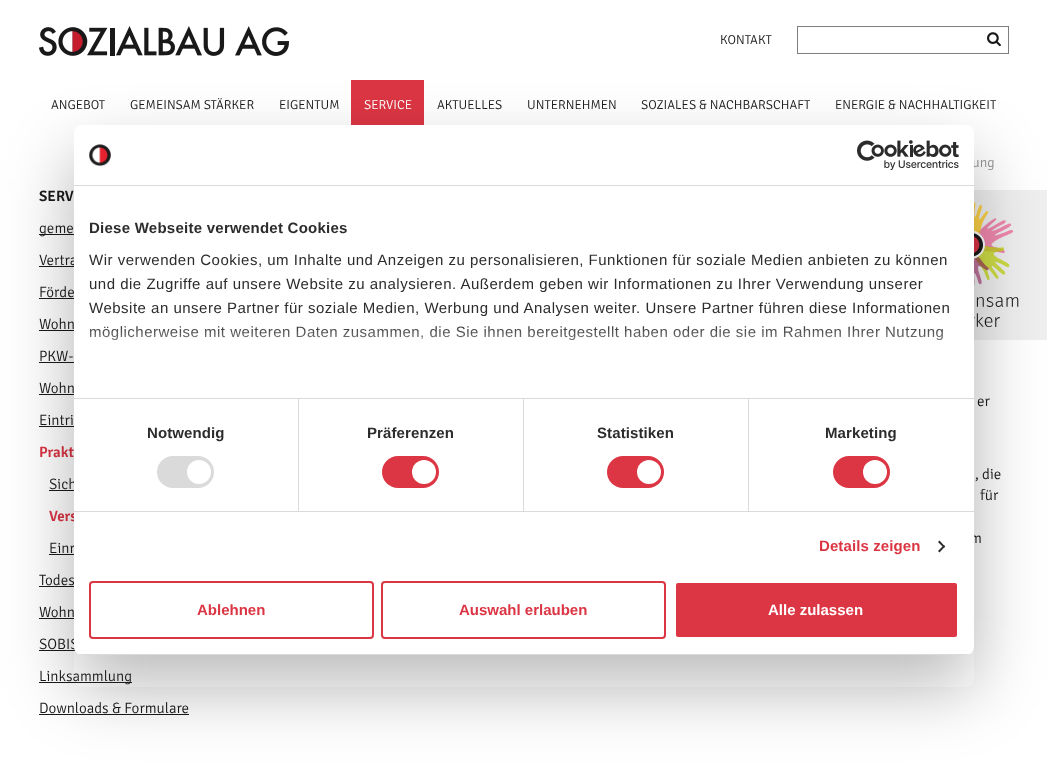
<?xml version="1.0" encoding="UTF-8"?>
<svg xmlns="http://www.w3.org/2000/svg" width="1047" height="780">
    <defs>
        <filter id="blur1" x="-50%" y="-200%" width="200%" height="500%"><feGaussianBlur stdDeviation="34"/></filter>
        <linearGradient id="g1" gradientUnits="userSpaceOnUse" x1="518" y1="398" x2="518" y2="323"><stop offset="0" stop-color="#FFFFFF"/><stop offset="0.5" stop-color="#FFFFFF" stop-opacity="0.8"/><stop offset="1" stop-color="#FFFFFF" stop-opacity="0"/></linearGradient>
        <clipPath id="clip1"><rect x="74" y="125" width="900" height="530" rx="8"/></clipPath>
    </defs>
    <rect width="100%" height="100%" fill="#FFFFFF"/>
    <image x="39" y="26" width="250" height="30" href="img_01.png"/>
    <text x="720" y="44" font-family="Signika" font-size="13" font-weight="300" fill="#1A1A1A">KONTAKT</text>
    <rect x="797" y="26" width="212" height="1" fill="#7E7E7E"/>
    <rect x="797" y="53" width="184" height="1" fill="#7E7E7E"/>
    <rect x="797" y="26" width="1" height="28" fill="#7E7E7E"/>
    <rect x="1008" y="26" width="1" height="28" fill="#7E7E7E"/>
    <rect x="981" y="53" width="28" height="1" fill="#7E7E7E"/>
    <image x="987" y="32" width="14" height="15" href="img_02.png"/>
    <text x="51" y="109" font-family="Signika" font-size="13" font-weight="300" fill="#1A1A1A">ANGEBOT</text>
    <text x="130" y="109" font-family="Signika" font-size="13" font-weight="300" fill="#1A1A1A">GEMEINSAM STÄRKER</text>
    <text x="279" y="109" font-family="Signika" font-size="13" font-weight="300" fill="#1A1A1A">EIGENTUM</text>
    <rect x="351" y="80" width="73" height="45" fill="#DB3543"/>
    <text x="364" y="109" font-family="Signika" font-size="13" font-weight="300" fill="#FFFFFF">SERVICE</text>
    <text x="437" y="109" font-family="Signika" font-size="13" font-weight="300" fill="#1A1A1A">AKTUELLES</text>
    <text x="527" y="109" font-family="Signika" font-size="13" font-weight="300" fill="#1A1A1A">UNTERNEHMEN</text>
    <text x="641" y="109" font-family="Signika" font-size="13" font-weight="300" fill="#1A1A1A">SOZIALES &amp; NACHBARSCHAFT</text>
    <text x="835" y="109" font-family="Signika" font-size="13" font-weight="300" fill="#1A1A1A">ENERGIE &amp; NACHHALTIGKEIT</text>
    <text x="972" y="167" font-family="Signika" font-size="14" font-weight="300" fill="#949494">ung</text>
    <text x="39" y="201" font-family="Signika" font-size="15" font-weight="600" fill="#1A1A1A">SERV</text>
    <rect x="39" y="234" width="35" height="1" fill="#1A1A1A"/>
    <text x="39" y="233" font-family="Signika" font-size="15" font-weight="300" fill="#1A1A1A">geme</text>
    <text x="39" y="265" font-family="Signika" font-size="15" font-weight="300" fill="#1A1A1A">Vertra</text>
    <rect x="39" y="266" width="35" height="1" fill="#1A1A1A"/>
    <text x="39" y="297" font-family="Signika" font-size="15" font-weight="300" fill="#1A1A1A">Förde</text>
    <rect x="39" y="298" width="35" height="1" fill="#1A1A1A"/>
    <text x="39" y="329" font-family="Signika" font-size="15" font-weight="300" fill="#1A1A1A">Wohn</text>
    <rect x="39" y="330" width="35" height="1" fill="#1A1A1A"/>
    <text x="39" y="361" font-family="Signika" font-size="15" font-weight="300" fill="#1A1A1A">PKW-</text>
    <rect x="39" y="362" width="35" height="1" fill="#1A1A1A"/>
    <text x="39" y="393" font-family="Signika" font-size="15" font-weight="300" fill="#1A1A1A">Wohn</text>
    <rect x="39" y="394" width="35" height="1" fill="#1A1A1A"/>
    <text x="39" y="425" font-family="Signika" font-size="15" font-weight="300" fill="#1A1A1A">Eintri</text>
    <rect x="39" y="426" width="35" height="1" fill="#1A1A1A"/>
    <text x="39" y="457" font-family="Signika" font-size="15" font-weight="600" fill="#DB3543">Prakt</text>
    <text x="49" y="489" font-family="Signika" font-size="15" font-weight="300" fill="#1A1A1A">Sich</text>
    <rect x="49" y="490" width="25" height="1" fill="#1A1A1A"/>
    <text x="49" y="521" font-family="Signika" font-size="15" font-weight="600" fill="#DB3543">Vers</text>
    <text x="49" y="553" font-family="Signika" font-size="15" font-weight="300" fill="#1A1A1A">Einr</text>
    <rect x="49" y="554" width="25" height="1" fill="#1A1A1A"/>
    <text x="39" y="585" font-family="Signika" font-size="15" font-weight="300" fill="#1A1A1A">Todes</text>
    <rect x="39" y="586" width="35" height="1" fill="#1A1A1A"/>
    <text x="39" y="617" font-family="Signika" font-size="15" font-weight="300" fill="#1A1A1A">Wohn</text>
    <rect x="39" y="618" width="35" height="1" fill="#1A1A1A"/>
    <text x="39" y="649" font-family="Signika" font-size="15" font-weight="300" fill="#1A1A1A">SOBIS</text>
    <rect x="39" y="650" width="39" height="1" fill="#1A1A1A"/>
    <rect x="39" y="682" width="93" height="1" fill="#1A1A1A"/>
    <text x="39" y="681" font-family="Signika" font-size="15" font-weight="300" fill="#1A1A1A">Linksammlung</text>
    <text x="39" y="713" font-family="Signika" font-size="15" font-weight="300" fill="#1A1A1A">Downloads &amp; Formulare</text>
    <rect x="39" y="714" width="150" height="1" fill="#1A1A1A"/>
    <text x="977" y="406" font-family="Signika" font-size="15" font-weight="300" fill="#1A1A1A">er</text>
    <text x="975" y="479" font-family="Signika" font-size="15" font-weight="300" fill="#1A1A1A">, die</text>
    <text x="980" y="500" font-family="Signika" font-size="15" font-weight="300" fill="#1A1A1A">für</text>
    <text x="970" y="543" font-family="Signika" font-size="15" font-weight="300" fill="#1A1A1A">m</text>
    <image x="974" y="190" width="73" height="150" href="img_03.png"/>
    <rect x="74" y="157" width="900" height="530" rx="8" fill="#1A1A1A" fill-opacity="0.3" filter="url(#blur1)"/>
    <rect x="74" y="125" width="900" height="530" rx="8" fill="#FFFFFF"/>
    <rect x="74" y="185" width="900" height="1" fill="#DADADA"/>
    <image x="89" y="144" width="22" height="23" href="img_04.png"/>
    <image x="857" y="140" width="102" height="30" href="img_05.png"/>
    <rect x="74" y="398" width="900" height="1" fill="#DADADA"/>
    <text x="89" y="233" font-family="Liberation Sans" font-size="15" font-weight="700" letter-spacing="0.25" fill="#2C2C2C">Diese Webseite verwendet Cookies</text>
    <text font-family="Liberation Sans" font-size="15" letter-spacing="0.5" fill="#2C2C2C">
        <tspan x="89" y="265">Wir verwenden Cookies, um Inhalte und Anzeigen zu personalisieren, Funktionen für soziale Medien anbieten zu können</tspan>
        <tspan x="89" y="289">und die Zugriffe auf unsere Website zu analysieren. Außerdem geben wir Informationen zu Ihrer Verwendung unserer</tspan>
        <tspan x="89" y="313">Website an unsere Partner für soziale Medien, Werbung und Analysen weiter. Unsere Partner führen diese Informationen</tspan>
        <tspan x="89" y="337">möglicherweise mit weiteren Daten zusammen, die Sie ihnen bereitgestellt haben oder die sie im Rahmen Ihrer Nutzung</tspan>
    </text>
    <rect x="89" y="326" width="854" height="15" fill="url(#g1)"/>
    <rect x="74" y="511" width="900" height="1" fill="#DADADA"/>
    <rect x="298" y="399" width="1" height="112" fill="#DADADA"/>
    <text x="147" y="438" font-family="Liberation Sans" font-size="15" font-weight="700" letter-spacing="0.1" fill="#2C2C2C">Notwendig</text>
    <rect x="157" y="456" width="57" height="32" rx="16" fill="#DADADA"/>
    <circle cx="199" cy="472" r="12" fill="#FFFFFF"/>
    <rect x="523" y="399" width="1" height="112" fill="#DADADA"/>
    <text x="367" y="438" font-family="Liberation Sans" font-size="15" font-weight="700" letter-spacing="0.1" fill="#2C2C2C">Präferenzen</text>
    <rect x="382" y="456" width="57" height="32" rx="16" fill="#DC3543"/>
    <circle cx="424" cy="472" r="12" fill="#FFFFFF"/>
    <rect x="748" y="399" width="1" height="112" fill="#DADADA"/>
    <text x="597" y="438" font-family="Liberation Sans" font-size="15" font-weight="700" letter-spacing="0.1" fill="#2C2C2C">Statistiken</text>
    <rect x="607" y="456" width="57" height="32" rx="16" fill="#DC3543"/>
    <circle cx="649" cy="472" r="12" fill="#FFFFFF"/>
    <text x="825" y="438" font-family="Liberation Sans" font-size="15" font-weight="700" letter-spacing="0.1" fill="#2C2C2C">Marketing</text>
    <rect x="833" y="456" width="57" height="32" rx="16" fill="#DC3543"/>
    <circle cx="875" cy="472" r="12" fill="#FFFFFF"/>
    <text x="819" y="551" font-family="Liberation Sans" font-size="15" font-weight="700" letter-spacing="0.1" fill="#DB3543">Details zeigen</text>
    <path d="M 939.5 540.5 L 945 546.5 L 944 548 L 938 542 Z" fill="#2C2C2C"/>
    <path d="M 944 545 L 945 546.5 L 939.5 552.5 L 938 551 Z" fill="#2C2C2C"/>
    <g clip-path="url(#clip1)">
        <rect x="74" y="654" width="900" height="1" fill="#DADADA"/>
    </g>
    <rect x="90" y="582" width="283" height="56" rx="3" fill="none" stroke="#DC3543" stroke-width="2"/>
    <text x="197" y="615" font-family="Liberation Sans" font-size="15" font-weight="700" fill="#DB3543">Ablehnen</text>
    <rect x="382" y="582" width="283" height="56" rx="3" fill="none" stroke="#DC3543" stroke-width="2"/>
    <text x="459" y="615" font-family="Liberation Sans" font-size="15" font-weight="700" fill="#DB3543">Auswahl erlauben</text>
    <rect x="675" y="582" width="283" height="56" rx="3" fill="#DC3543" stroke="#FFFFFF" stroke-width="2"/>
    <text x="768" y="615" font-family="Liberation Sans" font-size="15" font-weight="700" fill="#FFFFFF">Alle zulassen</text>
</svg>
